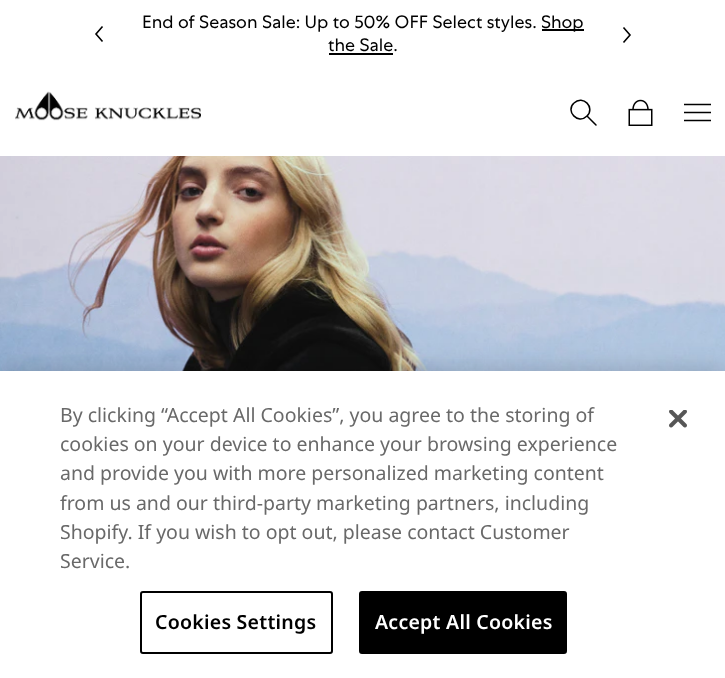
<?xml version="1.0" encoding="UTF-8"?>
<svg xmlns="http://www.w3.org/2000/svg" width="725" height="678">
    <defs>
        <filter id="blur1" x="-50%" y="-200%" width="200%" height="500%"><feGaussianBlur stdDeviation="13.5"/></filter>
    </defs>
    <rect width="100%" height="100%" fill="#FFFFFF"/>
    <path d="M 102.5 41.5 L 96 34 L 102.5 26.5" fill="none" stroke="#000000" stroke-width="1.6"/>
    <text x="142" y="28" font-family="'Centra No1'" font-size="18" fill="#000000">End of Season Sale: Up to 50% OFF Select styles.</text>
    <rect x="542" y="29" width="42" height="2" fill="#000000"/>
    <text x="541" y="28" font-family="'Centra No1'" font-size="18" fill="#000000">Shop</text>
    <text x="328" y="51" font-family="'Centra No1'" font-size="18" fill="#000000">the Sale.</text>
    <rect x="329" y="53" width="64" height="2" fill="#000000"/>
    <path d="M 623.5 27.5 L 630 35 L 623.5 42.5" fill="none" stroke="#000000" stroke-width="1.6"/>
    <image x="15" y="91" width="186" height="30" href="img_01.png"/>
    <path d="M 587 116 C 578 125 565 111 574 103 C 583 94.5 595.5 107.5 587 116 Z M 587 116 L 596 125" fill="none" stroke="#000000" stroke-width="1.5" stroke-linecap="round"/>
    <image x="628" y="99" width="25" height="27" href="img_02.png"/>
    <path d="M 684 104.5 H 711 M 684 112.5 H 711 M 684 120.5 H 711" fill="none" stroke="#000000" stroke-width="1.4"/>
    <image x="0" y="156" width="725" height="215" href="img_03.png"/>
    <rect x="0" y="371" width="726" height="307" fill="#000000" fill-opacity="0.2" filter="url(#blur1)"/>
    <rect x="0" y="371" width="725" height="307" fill="#FFFFFF"/>
    <text font-family="Noto Sans" font-size="19.5" fill="#696969">
        <tspan x="60" y="422">By clicking “Accept All Cookies”, you agree to the storing of</tspan>
        <tspan x="60" y="451">cookies on your device to enhance your browsing experience</tspan>
        <tspan x="60" y="480">and provide you with more personalized marketing content</tspan>
        <tspan x="60" y="510">from us and our third-party marketing partners, including</tspan>
        <tspan x="60" y="539">Shopify. If you wish to opt out, please contact Customer</tspan>
        <tspan x="60" y="568">Service.</tspan>
    </text>
    <rect x="141" y="592" width="191" height="61" rx="2" fill="none" stroke="#000000" stroke-width="2"/>
    <text x="155" y="629" font-family="Noto Sans" font-size="19.5" font-weight="600" letter-spacing="0.25" fill="#000000">Cookies Settings</text>
    <rect x="360" y="592" width="206" height="61" rx="2" fill="#000000" stroke="#000000" stroke-width="2"/>
    <text x="375" y="629" font-family="Noto Sans" font-size="19.5" font-weight="600" letter-spacing="0.25" fill="#FFFFFF">Accept All Cookies</text>
    <image x="669" y="410" width="18" height="18" href="img_04.png"/>
</svg>
